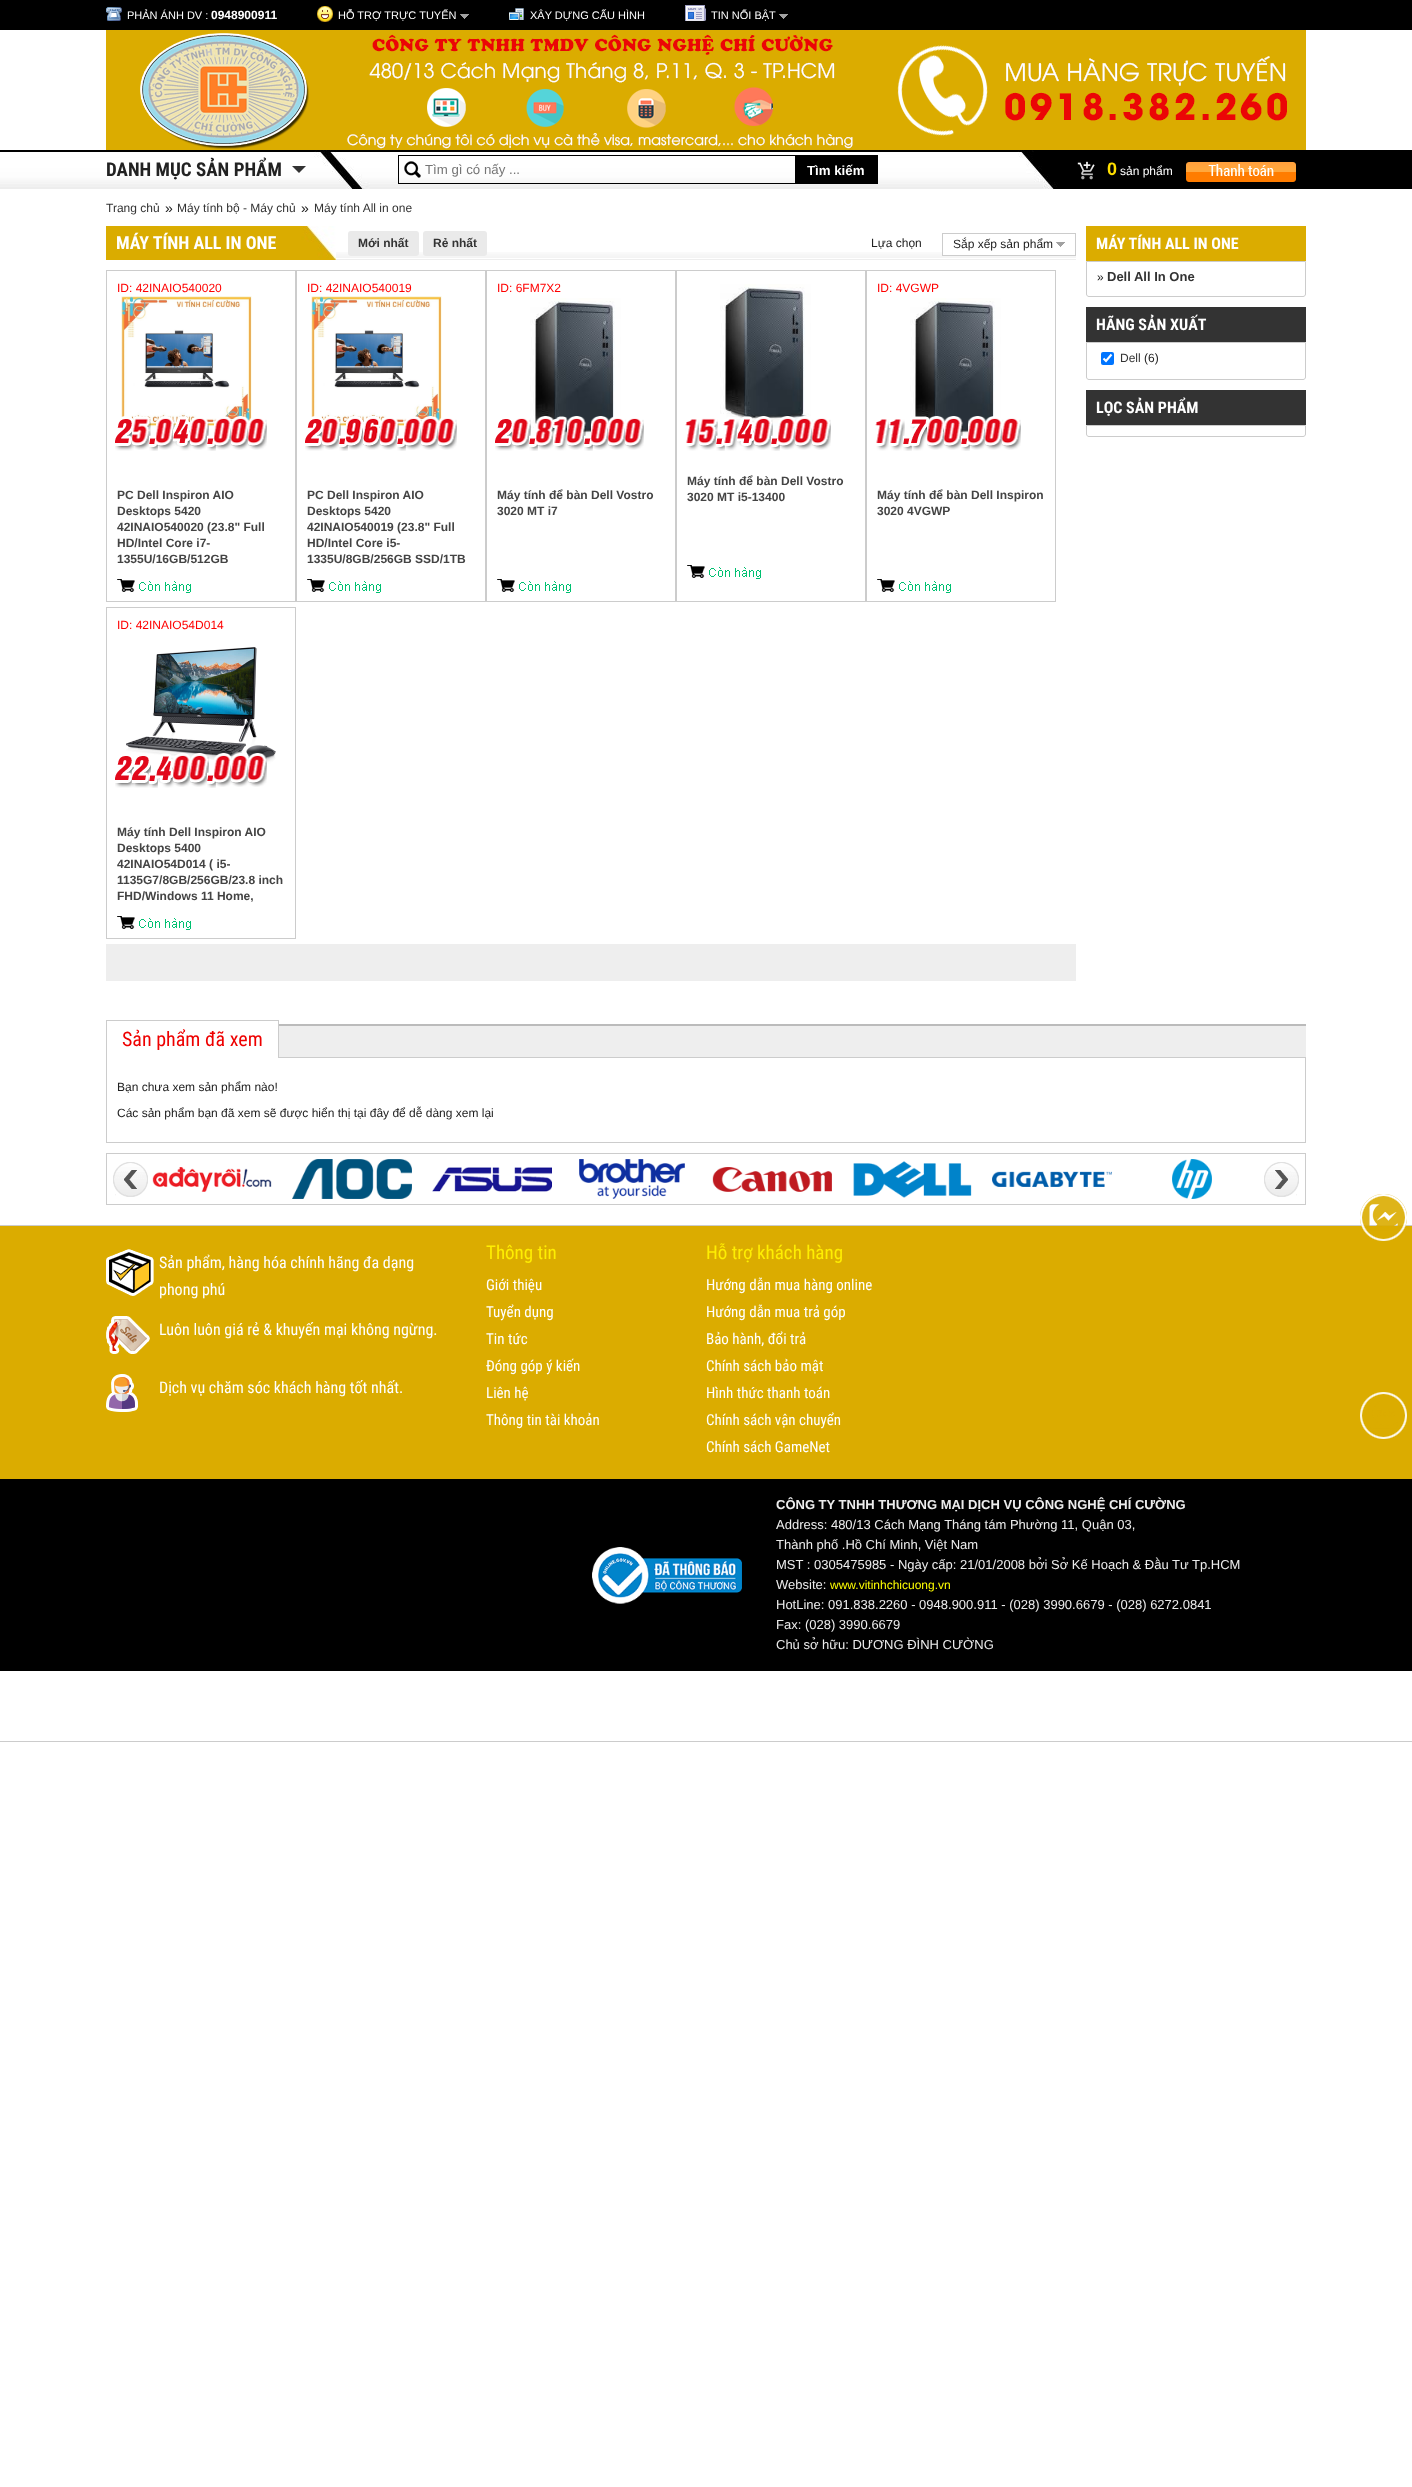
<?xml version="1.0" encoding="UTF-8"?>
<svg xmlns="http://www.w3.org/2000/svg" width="1412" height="2487">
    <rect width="100%" height="100%" fill="#FFFFFF"/>
    <rect x="0" y="0" width="1412" height="30" fill="#000000"/>
    <image x="106" y="7" width="16" height="14" href="img_01.png"/>
    <text x="127" y="19" font-family="Liberation Sans" font-size="11" fill="#FFFFFF">PHẢN ÁNH DV :</text>
    <text x="211" y="19" font-family="Liberation Sans" font-size="12" font-weight="700" fill="#FFFFFF">0948900911</text>
    <image x="317" y="6" width="16" height="16" href="img_02.png"/>
    <text x="338" y="19" font-family="Liberation Sans" font-size="11" fill="#FFFFFF">HỖ TRỢ TRỰC TUYẾN</text>
    <image x="460" y="14" width="9" height="5" href="img_03.png"/>
    <image x="509" y="8" width="15" height="12" href="img_04.png"/>
    <text x="530" y="19" font-family="Liberation Sans" font-size="11" fill="#FFFFFF">XÂY DỰNG CẤU HÌNH</text>
    <image x="685" y="5" width="21" height="16" href="img_05.png"/>
    <text x="711" y="19" font-family="Liberation Sans" font-size="11" fill="#FFFFFF">TIN NỔI BẬT</text>
    <image x="779" y="14" width="9" height="5" href="img_03.png"/>
    <image x="106" y="30" width="1200" height="120" href="img_06.png"/>
    <image x="0" y="150" width="1412" height="39" href="img_07.png"/>
    <text x="106" y="176" font-family="Roboto Condensed" font-size="19" font-weight="700" fill="#222222">DANH MỤC SẢN PHẨM</text>
    <path d="M 292 166 H 306 L 299 173 Z" fill="#333333"/>
    <image x="404" y="161" width="17" height="17" href="img_08.png"/>
    <rect x="398.5" y="155.5" width="479" height="28" fill="none" stroke="#000000"/>
    <text x="425" y="174" font-family="Liberation Sans" font-size="13.25" fill="#757575">Tìm gì có nấy ...</text>
    <rect x="795" y="156" width="82" height="27" fill="#000000"/>
    <text x="807" y="175" font-family="Liberation Sans" font-size="13.25" font-weight="700" fill="#FFFFFF">Tìm kiếm</text>
    <image x="1077" y="161" width="18" height="19" href="img_09.png"/>
    <text x="1107" y="175" font-family="Liberation Sans" font-size="18" font-weight="700" fill="#FFDF00">0</text>
    <text x="1120" y="175" font-family="Liberation Sans" font-size="12" fill="#FFFFFF">sản phẩm</text>
    <image x="1186" y="162" width="110" height="20" href="img_10.png"/>
    <text x="106" y="212" font-family="Liberation Sans" font-size="12" fill="#333333">Trang chủ</text>
    <text x="165" y="213" font-family="Liberation Sans" font-size="14" fill="#222222">»</text>
    <text x="177" y="212" font-family="Liberation Sans" font-size="12" fill="#333333">Máy tính bộ - Máy chủ</text>
    <text x="301" y="213" font-family="Liberation Sans" font-size="14" fill="#222222">»</text>
    <text x="314" y="212" font-family="Liberation Sans" font-size="12" fill="#333333">Máy tính All in one</text>
    <image x="336" y="252" width="740" height="6" href="img_11.png"/>
    <rect x="336" y="259" width="740" height="1" fill="#EEEEEE"/>
    <image x="106" y="226" width="230" height="34" href="img_12.png"/>
    <text x="116" y="249" font-family="Roboto Condensed" font-size="18" font-weight="700" fill="#FFFFFF">MÁY TÍNH ALL IN ONE</text>
    <rect x="348" y="231" width="71" height="25" rx="3" fill="#EAEAEA"/>
    <text x="358" y="247" font-family="Liberation Sans" font-size="12" font-weight="700" fill="#333333">Mới nhất</text>
    <rect x="423" y="231" width="64" height="25" rx="3" fill="#EAEAEA"/>
    <text x="433" y="247" font-family="Liberation Sans" font-size="12" font-weight="700" fill="#333333">Rẻ nhất</text>
    <text x="871" y="247" font-family="Liberation Sans" font-size="12" fill="#222222">Lựa chọn</text>
    <rect x="943" y="252" width="132" height="3" fill="#FFFFFF"/>
    <rect x="942.5" y="233.5" width="133" height="22" fill="none" stroke="#CCCCCC"/>
    <text x="953" y="248" font-family="Liberation Sans" font-size="12" fill="#222222">Sắp xếp sản phẩm</text>
    <image x="1056" y="242" width="9" height="5" href="img_13.png"/>
    <rect x="106.5" y="270.5" width="189" height="331" fill="none" stroke="#CCCCCC"/>
    <text x="117" y="292" font-family="Liberation Sans" font-size="12" fill="#FF0000">ID: 42INAIO540020</text>
    <image x="121" y="296" width="131" height="131" href="img_14.png"/>
    <image x="115" y="416" width="19" height="35" href="img_15.png"/>
    <image x="132" y="416" width="19" height="34" href="img_16.png"/>
    <image x="149" y="435" width="9" height="16" href="img_17.png"/>
    <image x="156" y="416" width="19" height="34" href="img_18.png"/>
    <image x="173" y="416" width="19" height="35" href="img_19.png"/>
    <image x="190" y="417" width="19" height="33" href="img_20.png"/>
    <image x="207" y="435" width="9" height="16" href="img_21.png"/>
    <image x="214" y="416" width="19" height="34" href="img_22.png"/>
    <image x="231" y="416" width="19" height="34" href="img_23.png"/>
    <image x="248" y="417" width="19" height="33" href="img_24.png"/>
    <text font-family="Liberation Sans" font-size="12" font-weight="700" fill="#444444">
        <tspan x="117" y="499">PC Dell Inspiron AIO</tspan>
        <tspan x="117" y="515">Desktops 5420</tspan>
        <tspan x="117" y="531">42INAIO540020 (23.8" Full</tspan>
        <tspan x="117" y="547">HD/Intel Core i7-</tspan>
        <tspan x="117" y="563">1355U/16GB/512GB</tspan>
    </text>
    <image x="117" y="579" width="74" height="14" href="img_25.png"/>
    <rect x="296.5" y="270.5" width="189" height="331" fill="none" stroke="#CCCCCC"/>
    <text x="307" y="292" font-family="Liberation Sans" font-size="12" fill="#FF0000">ID: 42INAIO540019</text>
    <image x="311" y="296" width="131" height="131" href="img_14.png"/>
    <image x="305" y="416" width="19" height="35" href="img_15.png"/>
    <image x="322" y="416" width="19" height="34" href="img_26.png"/>
    <image x="339" y="435" width="9" height="16" href="img_21.png"/>
    <image x="346" y="416" width="18" height="34" href="img_27.png"/>
    <image x="363" y="416" width="19" height="34" href="img_28.png"/>
    <image x="380" y="417" width="19" height="33" href="img_29.png"/>
    <image x="397" y="435" width="9" height="16" href="img_21.png"/>
    <image x="404" y="416" width="19" height="34" href="img_22.png"/>
    <image x="421" y="416" width="19" height="34" href="img_23.png"/>
    <image x="438" y="417" width="19" height="33" href="img_24.png"/>
    <text font-family="Liberation Sans" font-size="12" font-weight="700" fill="#444444">
        <tspan x="307" y="499">PC Dell Inspiron AIO</tspan>
        <tspan x="307" y="515">Desktops 5420</tspan>
        <tspan x="307" y="531">42INAIO540019 (23.8" Full</tspan>
        <tspan x="307" y="547">HD/Intel Core i5-</tspan>
        <tspan x="307" y="563">1335U/8GB/256GB SSD/1TB</tspan>
    </text>
    <image x="307" y="579" width="74" height="14" href="img_25.png"/>
    <rect x="486.5" y="270.5" width="189" height="331" fill="none" stroke="#CCCCCC"/>
    <text x="497" y="292" font-family="Liberation Sans" font-size="12" fill="#FF0000">ID: 6FM7X2</text>
    <image x="530" y="298" width="91" height="142" href="img_30.png"/>
    <image x="495" y="419" width="19" height="32" href="img_31.png"/>
    <image x="512" y="418" width="19" height="32" href="img_32.png"/>
    <image x="529" y="435" width="9" height="16" href="img_33.png"/>
    <image x="536" y="416" width="19" height="34" href="img_34.png"/>
    <image x="553" y="416" width="16" height="35" href="img_35.png"/>
    <image x="567" y="416" width="19" height="34" href="img_36.png"/>
    <image x="584" y="435" width="9" height="16" href="img_37.png"/>
    <image x="591" y="416" width="19" height="34" href="img_38.png"/>
    <image x="608" y="416" width="19" height="34" href="img_39.png"/>
    <image x="625" y="418" width="19" height="32" href="img_40.png"/>
    <text font-family="Liberation Sans" font-size="12" font-weight="700" fill="#444444">
        <tspan x="497" y="499">Máy tính để bàn Dell Vostro</tspan>
        <tspan x="497" y="515">3020 MT i7</tspan>
    </text>
    <image x="497" y="579" width="74" height="14" href="img_25.png"/>
    <rect x="676.5" y="270.5" width="189" height="331" fill="none" stroke="#CCCCCC"/>
    <image x="720" y="284" width="91" height="142" href="img_41.png"/>
    <image x="685" y="419" width="15" height="32" href="img_42.png"/>
    <image x="699" y="418" width="19" height="32" href="img_43.png"/>
    <image x="716" y="435" width="9" height="16" href="img_17.png"/>
    <image x="723" y="416" width="16" height="35" href="img_44.png"/>
    <image x="737" y="416" width="19" height="35" href="img_45.png"/>
    <image x="754" y="416" width="19" height="34" href="img_46.png"/>
    <image x="771" y="435" width="9" height="16" href="img_21.png"/>
    <image x="778" y="416" width="19" height="34" href="img_47.png"/>
    <image x="795" y="416" width="19" height="34" href="img_48.png"/>
    <image x="812" y="418" width="19" height="32" href="img_40.png"/>
    <text font-family="Liberation Sans" font-size="12" font-weight="700" fill="#444444">
        <tspan x="687" y="485">Máy tính để bàn Dell Vostro</tspan>
        <tspan x="687" y="501">3020 MT i5-13400</tspan>
    </text>
    <image x="687" y="565" width="74" height="14" href="img_25.png"/>
    <rect x="866.5" y="270.5" width="189" height="331" fill="none" stroke="#CCCCCC"/>
    <text x="877" y="292" font-family="Liberation Sans" font-size="12" fill="#FF0000">ID: 4VGWP</text>
    <image x="910" y="298" width="91" height="142" href="img_49.png"/>
    <image x="875" y="419" width="16" height="32" href="img_50.png"/>
    <image x="889" y="419" width="16" height="32" href="img_51.png"/>
    <image x="903" y="435" width="9" height="16" href="img_52.png"/>
    <image x="910" y="416" width="19" height="35" href="img_53.png"/>
    <image x="927" y="416" width="19" height="34" href="img_54.png"/>
    <image x="944" y="416" width="19" height="34" href="img_55.png"/>
    <image x="961" y="435" width="9" height="16" href="img_37.png"/>
    <image x="968" y="416" width="19" height="34" href="img_56.png"/>
    <image x="985" y="416" width="19" height="34" href="img_57.png"/>
    <image x="1002" y="418" width="19" height="32" href="img_40.png"/>
    <text font-family="Liberation Sans" font-size="12" font-weight="700" fill="#444444">
        <tspan x="877" y="499">Máy tính để bàn Dell Inspiron</tspan>
        <tspan x="877" y="515">3020 4VGWP</tspan>
    </text>
    <image x="877" y="579" width="74" height="14" href="img_25.png"/>
    <rect x="106.5" y="607.5" width="189" height="331" fill="none" stroke="#CCCCCC"/>
    <text x="117" y="629" font-family="Liberation Sans" font-size="12" fill="#FF0000">ID: 42INAIO54D014</text>
    <image x="126" y="646" width="150" height="118" href="img_58.png"/>
    <image x="115" y="756" width="19" height="32" href="img_31.png"/>
    <image x="132" y="756" width="19" height="32" href="img_59.png"/>
    <image x="149" y="772" width="9" height="16" href="img_60.png"/>
    <image x="156" y="753" width="19" height="35" href="img_61.png"/>
    <image x="173" y="753" width="19" height="34" href="img_62.png"/>
    <image x="190" y="753" width="19" height="34" href="img_63.png"/>
    <image x="207" y="772" width="9" height="16" href="img_21.png"/>
    <image x="214" y="753" width="19" height="34" href="img_64.png"/>
    <image x="231" y="753" width="19" height="34" href="img_65.png"/>
    <image x="248" y="753" width="19" height="34" href="img_66.png"/>
    <text font-family="Liberation Sans" font-size="12" font-weight="700" fill="#444444">
        <tspan x="117" y="836">Máy tính Dell Inspiron AIO</tspan>
        <tspan x="117" y="852">Desktops 5400</tspan>
        <tspan x="117" y="868">42INAIO54D014 ( i5-</tspan>
        <tspan x="117" y="884">1135G7/8GB/256GB/23.8 inch</tspan>
        <tspan x="117" y="900">FHD/Windows 11 Home,</tspan>
    </text>
    <image x="117" y="916" width="74" height="14" href="img_25.png"/>
    <rect x="106" y="944" width="970" height="37" fill="#EEEEEE"/>
    <rect x="1086" y="226" width="220" height="35" fill="#DBAC00"/>
    <text x="1096" y="249" font-family="Roboto Condensed" font-size="16" font-weight="700" fill="#FFFFFF">MÁY TÍNH ALL IN ONE</text>
    <path d="M 1086.5 261.5 H 1305.5 V 294 C 1305.5 295.5 1304.5 296.5 1303 296.5 H 1089 C 1087.5 296.5 1086.5 295.5 1086.5 294 Z" fill="none" stroke="#CCCCCC"/>
    <text x="1097" y="281" font-family="Liberation Sans" font-size="12" fill="#222222">»</text>
    <text x="1107" y="281" font-family="Liberation Sans" font-size="13" font-weight="700" fill="#333333">Dell All In One</text>
    <rect x="1086" y="307" width="220" height="35" fill="#333333"/>
    <text x="1096" y="330" font-family="Roboto Condensed" font-size="16" font-weight="700" fill="#FFFFFF">HÃNG SẢN XUẤT</text>
    <path d="M 1086.5 342.5 H 1305.5 V 377 C 1305.5 378.5 1304.5 379.5 1303 379.5 H 1089 C 1087.5 379.5 1086.5 378.5 1086.5 377 Z" fill="none" stroke="#CCCCCC"/>
    <rect x="1101" y="352" width="13" height="13" rx="2" fill="#0075FF"/>
    <path d="M 1103.5 358.5 L 1106 361 L 1111.5 354.5" fill="none" stroke="#FFFFFF" stroke-width="2.1"/>
    <text x="1120" y="362" font-family="Liberation Sans" font-size="12" fill="#333333">Dell</text>
    <text x="1144" y="362" font-family="Liberation Sans" font-size="12" fill="#222222">(6)</text>
    <rect x="1086" y="390" width="220" height="35" fill="#333333"/>
    <text x="1096" y="413" font-family="Roboto Condensed" font-size="16" font-weight="700" fill="#FFFFFF">LỌC SẢN PHẨM</text>
    <path d="M 1086.5 425.5 H 1305.5 V 434 C 1305.5 435.5 1304.5 436.5 1303 436.5 H 1089 C 1087.5 436.5 1086.5 435.5 1086.5 434 Z" fill="none" stroke="#CCCCCC"/>
    <rect x="279" y="1026" width="1027" height="31" fill="#EEEEEE"/>
    <rect x="279" y="1024" width="1027" height="2" fill="#BBBBBB"/>
    <rect x="279" y="1057" width="1027" height="1" fill="#CCCCCC"/>
    <rect x="106" y="1020" width="173" height="1" fill="#CCCCCC"/>
    <rect x="278" y="1020" width="1" height="38" fill="#CCCCCC"/>
    <rect x="106" y="1020" width="1" height="38" fill="#CCCCCC"/>
    <text x="122" y="1046" font-family="Roboto Condensed" font-size="20" fill="#EE0000">Sản phẩm đã xem</text>
    <rect x="1305" y="1058" width="1" height="85" fill="#CCCCCC"/>
    <rect x="106" y="1142" width="1200" height="1" fill="#CCCCCC"/>
    <rect x="106" y="1058" width="1" height="85" fill="#CCCCCC"/>
    <text x="117" y="1091" font-family="Liberation Sans" font-size="12" fill="#222222">Bạn chưa xem sản phẩm nào!</text>
    <text x="117" y="1117" font-family="Liberation Sans" font-size="12" fill="#222222">Các sản phẩm bạn đã xem sẽ được hiển thị tại đây để dễ dàng xem lại</text>
    <rect x="106.5" y="1153.5" width="1199" height="51" fill="none" stroke="#CCCCCC"/>
    <image x="113" y="1162" width="35" height="35" href="img_67.png"/>
    <image x="152" y="1167" width="120" height="25" href="img_68.png"/>
    <image x="292" y="1159" width="120" height="40" href="img_69.png"/>
    <image x="432" y="1167" width="120" height="25" href="img_70.png"/>
    <image x="579" y="1159" width="106" height="40" href="img_71.png"/>
    <image x="712" y="1167" width="120" height="25" href="img_72.png"/>
    <image x="853" y="1161" width="119" height="37" href="img_73.png"/>
    <image x="992" y="1171" width="120" height="16" href="img_74.png"/>
    <image x="1172" y="1159" width="40" height="40" href="img_75.png"/>
    <image x="1264" y="1162" width="35" height="35" href="img_76.png"/>
    <rect x="0" y="1226" width="1412" height="253" fill="#DBAC00"/>
    <rect x="0" y="1225" width="1412" height="1" fill="#CCCCCC"/>
    <image x="106" y="1249" width="48" height="47" href="img_77.png"/>
    <text font-family="Roboto Condensed" font-size="16" fill="#FFFFFF">
        <tspan x="159" y="1268">Sản phẩm, hàng hóa chính hãng đa dạng</tspan>
        <tspan x="159" y="1295">phong phú</tspan>
    </text>
    <image x="106" y="1316" width="44" height="38" href="img_78.png"/>
    <text x="159" y="1335" font-family="Roboto Condensed" font-size="16" fill="#FFFFFF">Luôn luôn giá rẻ &amp; khuyến mại không ngừng.</text>
    <image x="106" y="1374" width="32" height="38" href="img_79.png"/>
    <text x="159" y="1393" font-family="Roboto Condensed" font-size="16" fill="#FFFFFF">Dịch vụ chăm sóc khách hàng tốt nhất.</text>
    <text x="486" y="1259" font-family="Roboto Condensed" font-size="19" fill="#FEEE02">Thông tin</text>
    <text font-family="Roboto Condensed" font-size="15" fill="#FFFFFF">
        <tspan x="486" y="1290">Giới thiệu</tspan>
        <tspan x="486" y="1317">Tuyển dụng</tspan>
        <tspan x="486" y="1344">Tin tức</tspan>
        <tspan x="486" y="1371">Đóng góp ý kiến</tspan>
        <tspan x="486" y="1398">Liên hệ</tspan>
        <tspan x="486" y="1425">Thông tin tài khoản</tspan>
    </text>
    <text x="706" y="1259" font-family="Roboto Condensed" font-size="19" fill="#FEEE02">Hỗ trợ khách hàng</text>
    <text font-family="Roboto Condensed" font-size="15" fill="#FFFFFF">
        <tspan x="706" y="1290">Hướng dẫn mua hàng online</tspan>
        <tspan x="706" y="1317">Hướng dẫn mua trả góp</tspan>
        <tspan x="706" y="1344">Bảo hành, đổi trả</tspan>
        <tspan x="706" y="1371">Chính sách bảo mật</tspan>
        <tspan x="706" y="1398">Hình thức thanh toán</tspan>
        <tspan x="706" y="1425">Chính sách vận chuyển</tspan>
        <tspan x="706" y="1452">Chính sách GameNet</tspan>
    </text>
    <image x="1360" y="1194" width="47" height="47" href="img_80.png"/>
    <image x="1360" y="1392" width="47" height="47" href="img_81.png"/>
    <rect x="0" y="1479" width="1412" height="192" fill="#000000"/>
    <image x="592" y="1547" width="150" height="57" href="img_82.png"/>
    <text x="776" y="1509" font-family="Liberation Sans" font-size="13" font-weight="700" fill="#ECECEC">CÔNG TY TNHH THƯƠNG MẠI DỊCH VỤ CÔNG NGHỆ CHÍ CƯỜNG</text>
    <text font-family="Liberation Sans" font-size="13" fill="#ECECEC">
        <tspan x="776" y="1529">Address: 480/13 Cách Mạng Tháng tám Phường 11, Quận 03,</tspan>
        <tspan x="776" y="1549">Thành phố .Hồ Chí Minh, Việt Nam</tspan>
        <tspan x="776" y="1569">MST : 0305475985 - Ngày cấp: 21/01/2008 bởi Sở Kế Hoạch &amp; Đầu Tư Tp.HCM</tspan>
        <tspan x="776" y="1589">Website:</tspan>
    </text>
    <text x="830" y="1589" font-family="Liberation Sans" font-size="12" fill="#FFFF00">www.vitinhchicuong.vn</text>
    <text font-family="Liberation Sans" font-size="13" fill="#ECECEC">
        <tspan x="776" y="1609">HotLine: 091.838.2260 - 0948.900.911 - (028) 3990.6679 - (028) 6272.0841</tspan>
        <tspan x="776" y="1629">Fax: (028) 3990.6679</tspan>
        <tspan x="776" y="1649">Chủ sở hữu: DƯƠNG ĐÌNH CƯỜNG</tspan>
    </text>
    <rect x="0" y="1741" width="1412" height="1" fill="#CCCCCC"/>
</svg>
